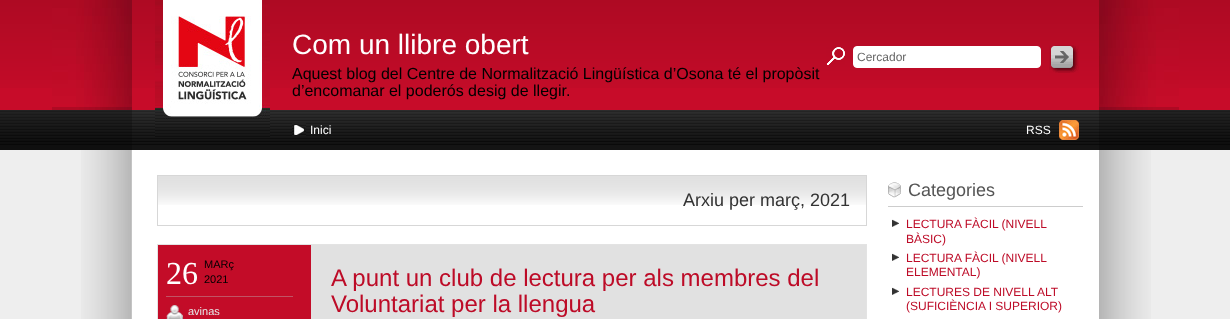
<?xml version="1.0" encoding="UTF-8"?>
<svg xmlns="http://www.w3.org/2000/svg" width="1230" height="319">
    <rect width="100%" height="100%" fill="#EEEEEE"/>
    <image x="81" y="150" width="1070" height="169" href="img_01.png"/>
    <rect x="0" y="88" width="1230" height="22" fill="#C70C29"/>
    <image x="0" y="0" width="1230" height="88" href="img_02.png"/>
    <image x="52" y="0" width="1127" height="110" href="img_03.png"/>
    <rect x="132" y="88" width="967" height="22" fill="#C70C29"/>
    <image x="132" y="0" width="967" height="88" href="img_04.png"/>
    <image x="0" y="110" width="1230" height="35" href="img_08.png"/>
    <image x="132" y="110" width="967" height="35" href="img_09.png"/>
    <image x="155" y="0" width="115" height="137" href="img_05.png"/>
    <text x="292" y="54" font-family="Liberation Sans" font-size="28" fill="#FFFFFF">Com un llibre obert</text>
    <image x="826" y="47" width="19" height="18" href="img_06.png"/>
    <rect x="853.5" y="46.5" width="187" height="21" rx="3.5" fill="#FFFFFF" stroke="#FFFFFF"/>
    <text x="857" y="61" font-family="Liberation Sans" font-size="12" fill="#666666">Cercador</text>
    <image x="1049" y="45" width="30" height="28" href="img_07.png"/>
    <text font-family="Liberation Sans" font-size="16" fill="#000000">
        <tspan x="292" y="79">Aquest blog del Centre de Normalització Lingüística d’Osona té el propòsit</tspan>
        <tspan x="292" y="96">d’encomanar el poderós desig de llegir.</tspan>
    </text>
    <rect x="0" y="145" width="1230" height="5" fill="#0F0F0F"/>
    <rect x="132" y="145" width="967" height="5" fill="#141414"/>
    <image x="292" y="123" width="14" height="13" href="img_10.png"/>
    <text x="310" y="134" font-family="Liberation Sans" font-size="12" fill="#FFFFFF">Inici</text>
    <image x="1059" y="120" width="20" height="20" href="img_11.png"/>
    <text x="1026" y="134" font-family="Liberation Sans" font-size="12" fill="#FFFFFF">RSS</text>
    <image x="158" y="176" width="708" height="29" href="img_12.png"/>
    <rect x="157.5" y="175.5" width="709" height="50" fill="none" stroke="#D7D7D7"/>
    <text x="683" y="206" font-family="Liberation Sans" font-size="18" fill="#333333">Arxiu per març, 2021</text>
    <rect x="158" y="245" width="153" height="74" fill="#C30C28"/>
    <rect x="157.5" y="244.5" width="709" height="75" fill="none" stroke="#E3E3E3"/>
    <rect x="166" y="296" width="127" height="1" fill="#C15364"/>
    <text x="166" y="284" font-family="Liberation Serif" font-size="32" fill="#FFFFFF">26</text>
    <text font-family="Liberation Sans" font-size="11" fill="#000000">
        <tspan x="204" y="268">MARç</tspan>
        <tspan x="204" y="283">2021</tspan>
    </text>
    <image x="166" y="305" width="17" height="14" href="img_13.png"/>
    <text x="188" y="315" font-family="Liberation Sans" font-size="11" fill="#E6E6E6">avinas</text>
    <rect x="311" y="245" width="555" height="74" fill="#E1E1E1"/>
    <text font-family="Liberation Sans" font-size="24" fill="#BD0B27">
        <tspan x="331" y="286">A punt un club de lectura per als membres del</tspan>
        <tspan x="331" y="312">Voluntariat per la llengua</tspan>
    </text>
    <image x="888" y="182" width="13" height="16" href="img_14.png"/>
    <rect x="888" y="206" width="195" height="1" fill="#CDCDCD"/>
    <text x="908" y="196" font-family="Liberation Sans" font-size="18" fill="#555555">Categories</text>
    <image x="892" y="219" width="7" height="8" href="img_15.png"/>
    <text font-family="Liberation Sans" font-size="12" fill="#BD0B27">
        <tspan x="906" y="228">LECTURA FÀCIL (NIVELL</tspan>
        <tspan x="906" y="243">BÀSIC)</tspan>
    </text>
    <image x="892" y="253" width="7" height="8" href="img_15.png"/>
    <text font-family="Liberation Sans" font-size="12" fill="#BD0B27">
        <tspan x="906" y="262">LECTURA FÀCIL (NIVELL</tspan>
        <tspan x="906" y="276">ELEMENTAL)</tspan>
    </text>
    <image x="892" y="287" width="7" height="8" href="img_15.png"/>
    <text font-family="Liberation Sans" font-size="12" fill="#BD0B27">
        <tspan x="906" y="296">LECTURES DE NIVELL ALT</tspan>
        <tspan x="906" y="310">(SUFICIÈNCIA I SUPERIOR)</tspan>
    </text>
</svg>
